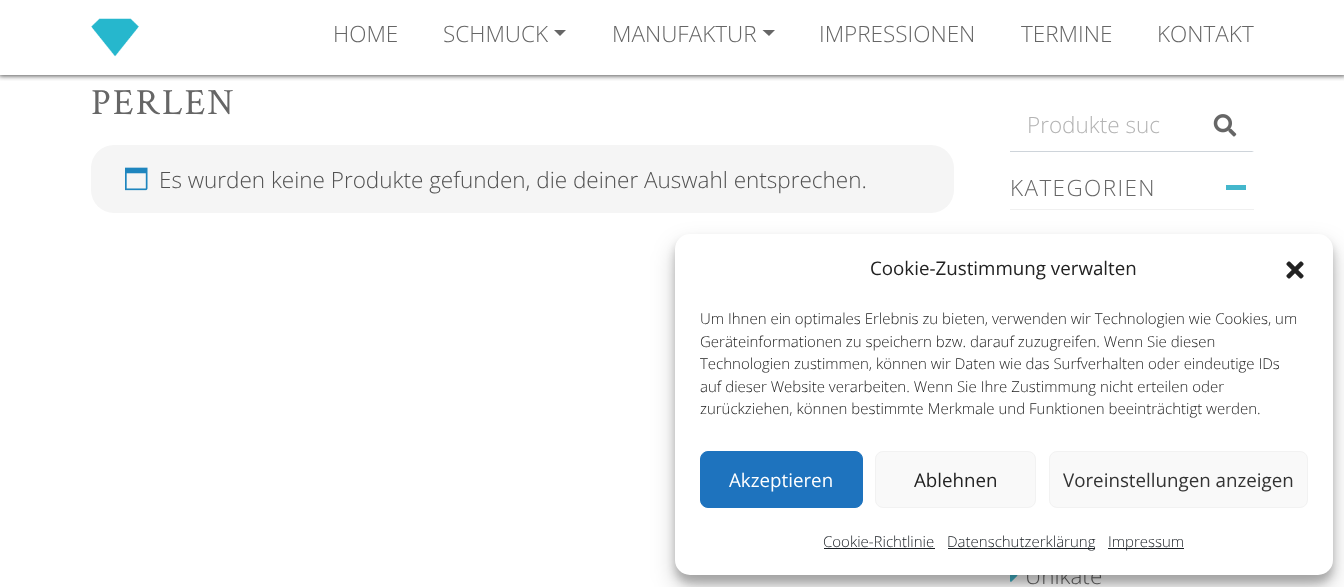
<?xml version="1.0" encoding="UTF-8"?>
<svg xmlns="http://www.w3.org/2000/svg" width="1344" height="587">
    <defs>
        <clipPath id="clip1"><rect x="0" y="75" width="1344" height="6"/></clipPath>
        <filter id="blur1" x="-50%" y="-200%" width="200%" height="500%"><feGaussianBlur stdDeviation="2.5"/></filter>
        <filter id="blur2" x="-50%" y="-200%" width="200%" height="500%"><feGaussianBlur stdDeviation="4"/></filter>
        <filter id="blur3" x="-50%" y="-200%" width="200%" height="500%"><feGaussianBlur stdDeviation="12.5"/></filter>
    </defs>
    <rect width="100%" height="100%" fill="#FFFFFF"/>
    <g clip-path="url(#clip1)">
        <rect x="-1" y="-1" width="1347" height="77" fill="#000000" fill-opacity="0.68" filter="url(#blur1)"/>
    </g>
    <image x="91" y="18" width="48" height="39" href="img_01.png"/>
    <text x="333" y="42" font-family="Open Sans" font-size="22.5" font-weight="300" fill="#666666">HOME</text>
    <text x="443" y="42" font-family="Open Sans" font-size="22.5" font-weight="300" fill="#666666">SCHMUCK</text>
    <path d="M 554 30 H 566 L 560 36 Z" fill="#666666"/>
    <text x="612" y="42" font-family="Open Sans" font-size="22.5" font-weight="300" fill="#666666">MANUFAKTUR</text>
    <path d="M 762.5 30 H 775 L 769 36 Z" fill="#666666"/>
    <text x="819" y="42" font-family="Open Sans" font-size="22.5" font-weight="300" fill="#666666">IMPRESSIONEN</text>
    <text x="1021" y="42" font-family="Open Sans" font-size="22.5" font-weight="300" fill="#666666">TERMINE</text>
    <text x="1157" y="42" font-family="Open Sans" font-size="22.5" font-weight="300" fill="#666666">KONTAKT</text>
    <text x="91" y="114" font-family="Crimson Text" font-size="37" letter-spacing="2.25" fill="#666666">PERLEN</text>
    <rect x="91" y="145" width="863" height="68" rx="23" fill="#F5F5F5"/>
    <image x="125" y="167" width="23" height="24" href="img_02.png"/>
    <text x="159" y="188" font-family="Open Sans" font-size="22.5" font-weight="300" fill="#515151">Es wurden keine Produkte gefunden, die deiner Auswahl entsprechen.</text>
    <rect x="1010" y="151" width="186" height="1" fill="#CED4DA"/>
    <text x="1027" y="133" font-family="Open Sans" font-size="22.5" font-weight="300" fill="#B3B3B3">Produkte suc</text>
    <path d="M 1254 152 H 1195 L 1196 151 H 1252 Z" fill="#CED4DA"/>
    <image x="1213" y="114" width="24" height="23" href="img_03.png"/>
    <rect x="1010" y="209" width="244" height="1" fill="#F0F0F0"/>
    <text x="1010" y="196" font-family="Open Sans" font-size="22.5" font-weight="300" letter-spacing="1.4" fill="#666666">KATEGORIEN</text>
    <rect x="1226" y="185" width="20" height="5" fill="#44B7CC"/>
    <image x="1010" y="575" width="8" height="7" href="img_04.png"/>
    <text x="1025" y="584" font-family="Open Sans" font-size="22.5" font-weight="300" fill="#666666">Unikate</text>
    <rect x="675" y="241" width="658" height="342" rx="15" fill="#000000" fill-opacity="0.23" filter="url(#blur2)"/>
    <rect x="675" y="246" width="658" height="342" rx="15" fill="#000000" fill-opacity="0.19" filter="url(#blur3)"/>
    <rect x="675" y="234" width="658" height="341" rx="15" fill="#FFFFFF"/>
    <text x="870" y="275" font-family="Open Sans" font-size="18.75" fill="#222222">Cookie-Zustimmung verwalten</text>
    <image x="1286" y="261" width="18" height="18" href="img_05.png"/>
    <text font-family="Open Sans" font-size="15" font-weight="300" fill="#222222">
        <tspan x="700" y="324">Um Ihnen ein optimales Erlebnis zu bieten, verwenden wir Technologien wie Cookies, um</tspan>
        <tspan x="700" y="347">Geräteinformationen zu speichern bzw. darauf zuzugreifen. Wenn Sie diesen</tspan>
        <tspan x="700" y="369">Technologien zustimmen, können wir Daten wie das Surfverhalten oder eindeutige IDs</tspan>
        <tspan x="700" y="392">auf dieser Website verarbeiten. Wenn Sie Ihre Zustimmung nicht erteilen oder</tspan>
        <tspan x="700" y="414">zurückziehen, können bestimmte Merkmale und Funktionen beeinträchtigt werden.</tspan>
    </text>
    <rect x="700.5" y="451.5" width="162" height="56" rx="7.5" fill="#1E73BE" stroke="#1E73BE"/>
    <text x="729" y="487" font-family="Open Sans" font-size="18.75" fill="#FFFFFF">Akzeptieren</text>
    <rect x="875.5" y="451.5" width="160" height="56" rx="7.5" fill="#F9F9F9" stroke="#F2F2F2"/>
    <text x="914" y="487" font-family="Open Sans" font-size="18.75" fill="#222222">Ablehnen</text>
    <rect x="1049.5" y="451.5" width="258" height="56" rx="7.5" fill="#F9F9F9" stroke="#F2F2F2"/>
    <text x="1063" y="487" font-family="Open Sans" font-size="18.75" fill="#333333">Voreinstellungen anzeigen</text>
    <text x="823" y="547" font-family="Open Sans" font-size="15" font-weight="300" fill="#191E23">Cookie-Richtlinie</text>
    <rect x="824" y="548" width="111" height="1" fill="#191E23"/>
    <rect x="948" y="548" width="147" height="1" fill="#191E23"/>
    <text x="947" y="547" font-family="Open Sans" font-size="15" font-weight="300" fill="#191E23">Datenschutzerklärung</text>
    <rect x="1108" y="548" width="76" height="1" fill="#191E23"/>
    <text x="1108" y="547" font-family="Open Sans" font-size="15" font-weight="300" fill="#191E23">Impressum</text>
</svg>
